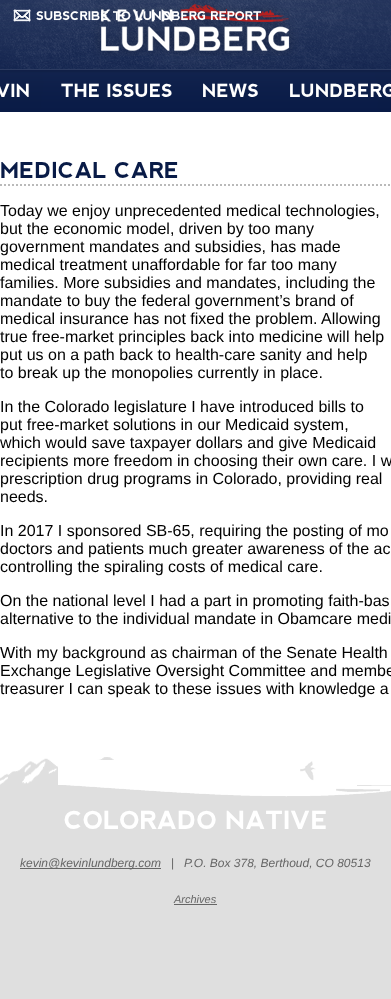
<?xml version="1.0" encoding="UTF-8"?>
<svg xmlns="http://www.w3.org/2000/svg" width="391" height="999">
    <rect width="100%" height="100%" fill="#DFDFDF"/>
    <image x="0" y="0" width="391" height="112" href="img_01.png"/>
    <image x="13" y="9" width="248" height="13" href="img_02.png"/>
    <text x="-4" y="97" font-family="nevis" font-size="18" font-weight="700" fill="#FFFFFF">VIN</text>
    <text x="61" y="97" font-family="nevis" font-size="18" font-weight="700" fill="#FFFFFF">THE ISSUES</text>
    <text x="202" y="97" font-family="nevis" font-size="18" font-weight="700" fill="#FFFFFF">NEWS</text>
    <text x="289" y="97" font-family="nevis" font-size="18" font-weight="700" fill="#FFFFFF">LUNDBERG</text>
    <rect x="0" y="112" width="391" height="648" fill="#FFFFFF"/>
    <text x="0" y="178" font-family="nevis" font-size="22" font-weight="700" fill="#091B47">MEDICAL CARE</text>
    <image x="0" y="184" width="390" height="2" href="img_03.png"/>
    <text font-family="Liberation Sans" font-size="16" fill="#000000">
        <tspan x="0" y="216">Today we enjoy unprecedented medical technologies,</tspan>
        <tspan x="0" y="234">but the economic model, driven by too many</tspan>
        <tspan x="0" y="252">government mandates and subsidies, has made</tspan>
        <tspan x="0" y="270">medical treatment unaffordable for far too many</tspan>
        <tspan x="0" y="288">families. More subsidies and mandates, including the</tspan>
        <tspan x="0" y="306">mandate to buy the federal government’s brand of</tspan>
        <tspan x="0" y="324">medical insurance has not fixed the problem. Allowing</tspan>
        <tspan x="0" y="342">true free-market principles back into medicine will help</tspan>
        <tspan x="0" y="360">put us on a path back to health-care sanity and help</tspan>
        <tspan x="0" y="378">to break up the monopolies currently in place.</tspan>
    </text>
    <text font-family="Liberation Sans" font-size="16" fill="#000000">
        <tspan x="0" y="412">In the Colorado legislature I have introduced bills to</tspan>
        <tspan x="0" y="430">put free-market solutions in our Medicaid system,</tspan>
        <tspan x="0" y="448">which would save taxpayer dollars and give Medicaid</tspan>
        <tspan x="0" y="466">recipients more freedom in choosing their own care. I w</tspan>
        <tspan x="0" y="484">prescription drug programs in Colorado, providing real</tspan>
        <tspan x="0" y="502">needs.</tspan>
    </text>
    <text font-family="Liberation Sans" font-size="16" fill="#000000">
        <tspan x="0" y="536">In 2017 I sponsored SB-65, requiring the posting of mo</tspan>
        <tspan x="0" y="554">doctors and patients much greater awareness of the ac</tspan>
        <tspan x="0" y="572">controlling the spiraling costs of medical care.</tspan>
    </text>
    <text font-family="Liberation Sans" font-size="16" fill="#000000">
        <tspan x="0" y="606">On the national level I had a part in promoting faith-bas</tspan>
        <tspan x="0" y="624">alternative to the individual mandate in Obamcare medi</tspan>
    </text>
    <text font-family="Liberation Sans" font-size="16" fill="#000000">
        <tspan x="0" y="658">With my background as chairman of the Senate Health</tspan>
        <tspan x="0" y="676">Exchange Legislative Oversight Committee and membe</tspan>
        <tspan x="0" y="694">treasurer I can speak to these issues with knowledge a</tspan>
    </text>
    <image x="0" y="757" width="151" height="28" href="img_04.png"/>
    <image x="58" y="760" width="333" height="37" href="img_05.png"/>
    <text x="64" y="829" font-family="nevis" font-size="25" font-weight="700" fill="#FFFFFF">COLORADO NATIVE</text>
    <rect x="20" y="868" width="141" height="1" fill="#666666"/>
    <text x="20" y="867" font-family="Liberation Sans" font-size="12" font-style="italic" fill="#666666">kevin@kevinlundberg.com</text>
    <text x="171" y="867" font-family="Liberation Sans" font-size="12" fill="#666666">|</text>
    <text x="184" y="867" font-family="Liberation Sans" font-size="12" font-style="italic" fill="#666666">P.O. Box 378, Berthoud, CO 80513</text>
    <text x="174" y="903" font-family="Liberation Sans" font-size="11" font-style="italic" fill="#666666">Archives</text>
    <rect x="174" y="904" width="43" height="1" fill="#666666"/>
</svg>
